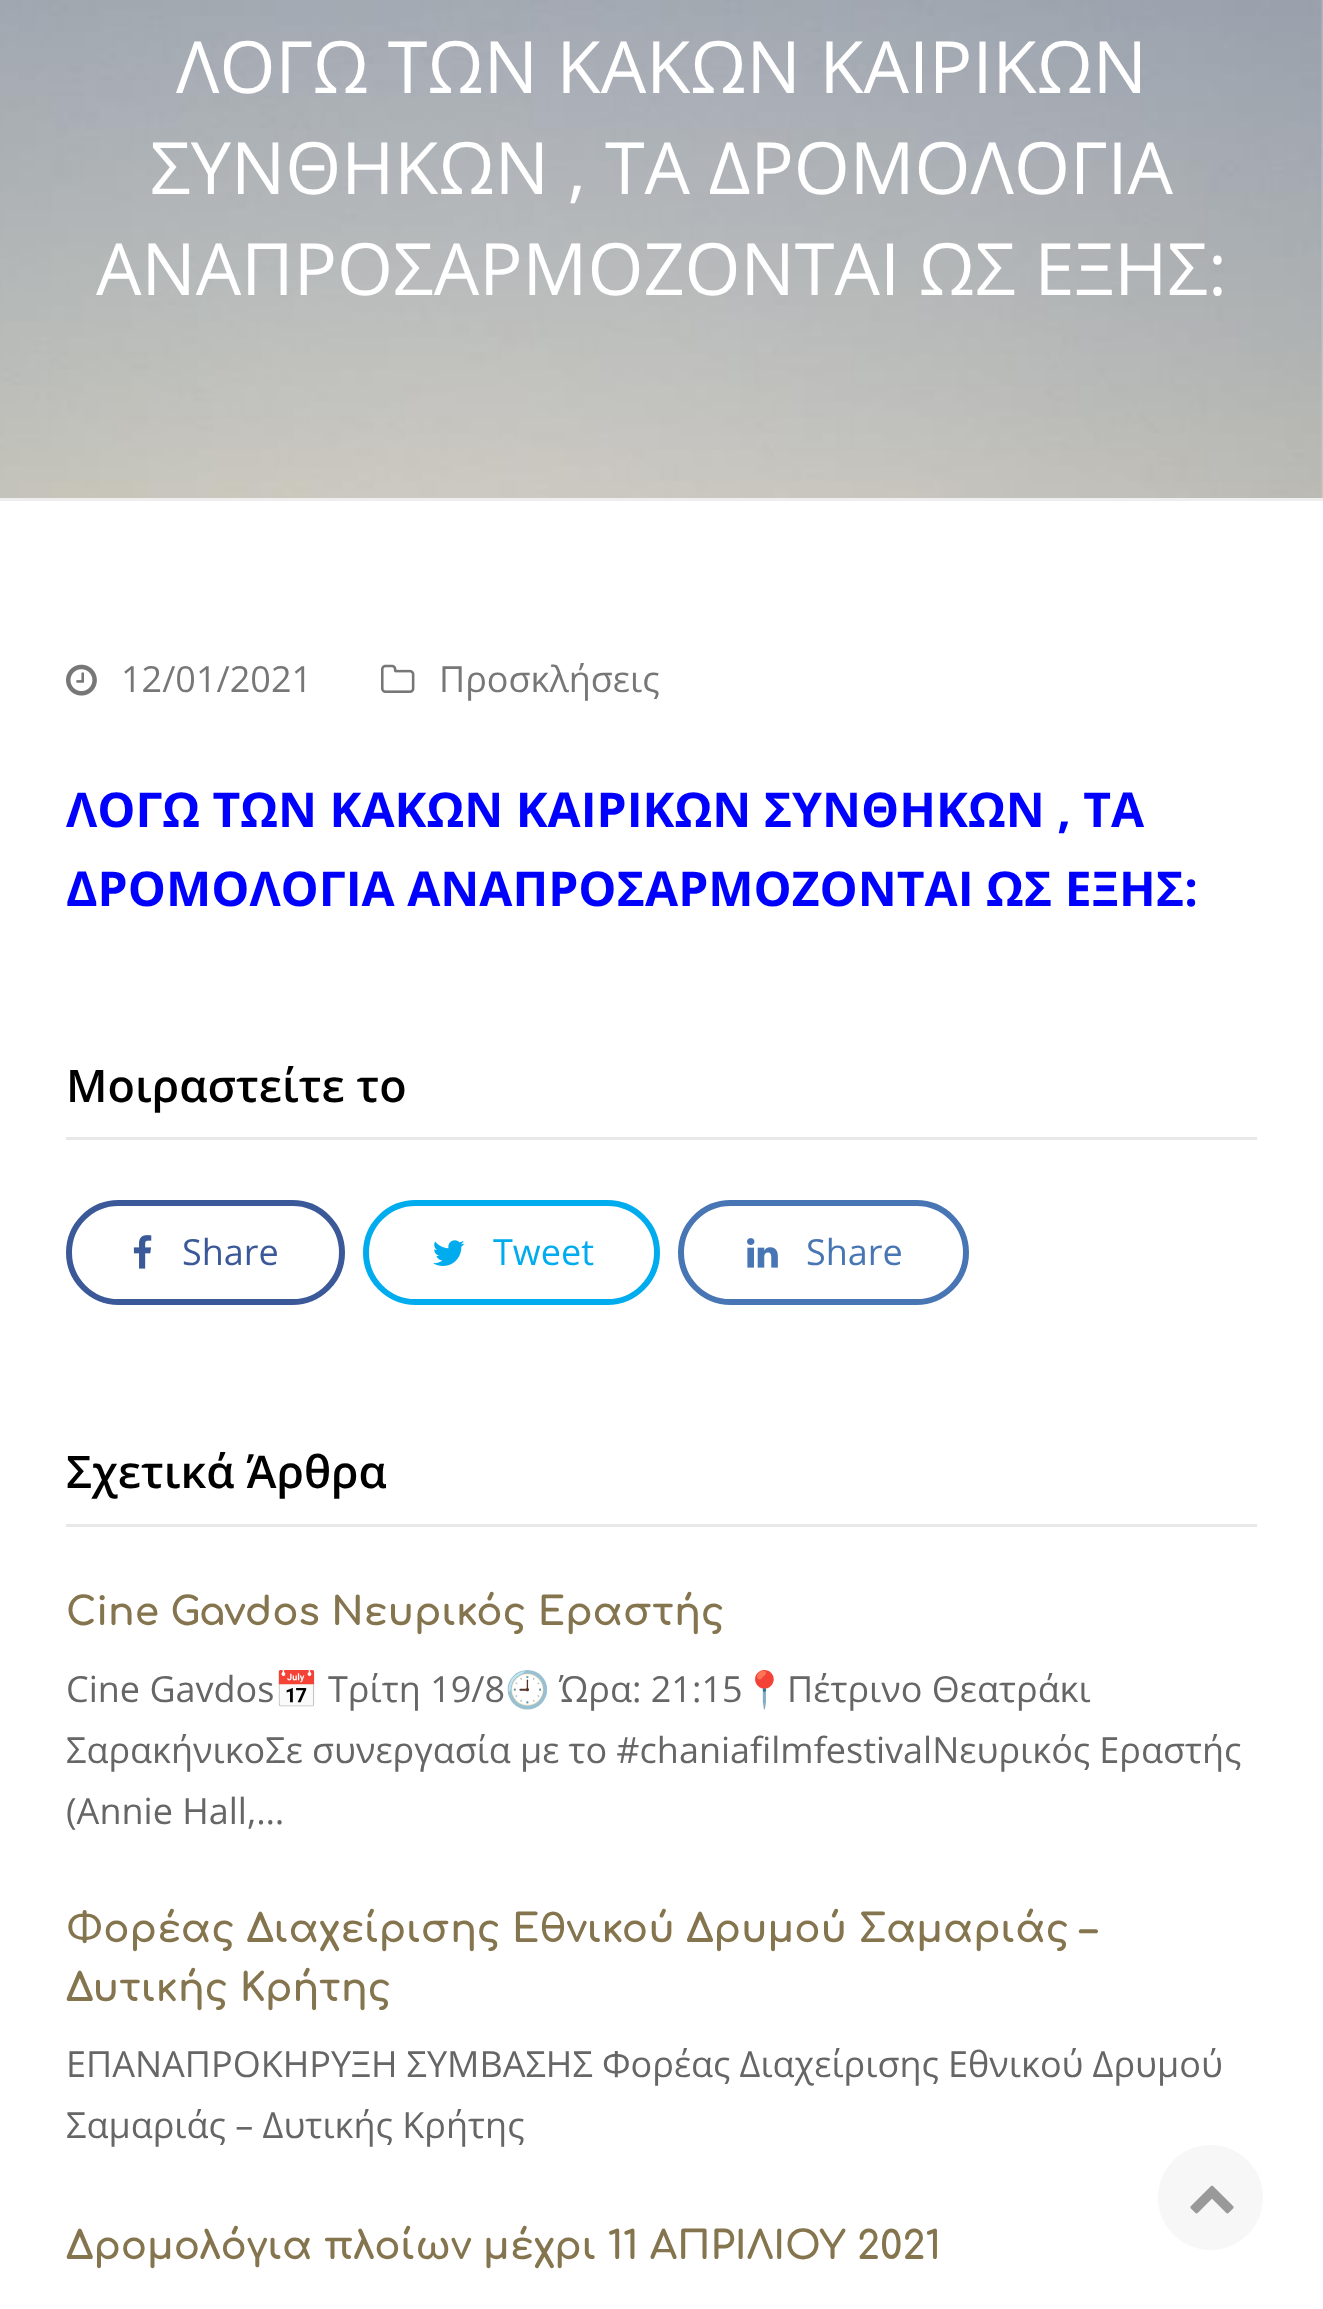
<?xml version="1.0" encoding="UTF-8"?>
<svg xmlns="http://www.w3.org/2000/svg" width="1323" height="2309">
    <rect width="100%" height="100%" fill="#FFFFFF"/>
    <image x="0" y="0" width="1323" height="498" href="img_01.png"/>
    <rect x="0" y="498" width="1323" height="3" fill="#EEEEEE"/>
    <text x="176" y="93" font-family="Open Sans" font-size="72" fill="#FFFFFF">ΛΟΓΩ ΤΩΝ ΚΑΚΩΝ ΚΑΙΡΙΚΩΝ</text>
    <text x="150" y="194" font-family="Open Sans" font-size="72" fill="#FFFFFF">ΣΥΝΘΗΚΩΝ , ΤΑ ΔΡΟΜΟΛΟΓΙΑ</text>
    <text x="96" y="295" font-family="Open Sans" font-size="72" fill="#FFFFFF">ΑΝΑΠΡΟΣΑΡΜΟΖΟΝΤΑΙ ΩΣ ΕΞΗΣ:</text>
    <image x="66" y="664" width="31" height="32" href="img_02.png"/>
    <text x="121" y="692" font-family="Open Sans" font-size="36" fill="#777777">12/01/2021</text>
    <image x="381" y="664" width="34" height="29" href="img_03.png"/>
    <text x="439" y="692" font-family="Open Sans" font-size="36" fill="#777777">Προσκλήσεις</text>
    <text font-family="Open Sans" font-size="48" font-weight="700" fill="#0000FF">
        <tspan x="66" y="827">ΛΟΓΩ ΤΩΝ ΚΑΚΩΝ ΚΑΙΡΙΚΩΝ ΣΥΝΘΗΚΩΝ , ΤΑ</tspan>
        <tspan x="66" y="906">ΔΡΟΜΟΛΟΓΙΑ ΑΝΑΠΡΟΣΑΡΜΟΖΟΝΤΑΙ ΩΣ ΕΞΗΣ:</tspan>
    </text>
    <rect x="66" y="1137" width="1191" height="3" fill="#E8E8E8"/>
    <text x="66" y="1102" font-family="Open Sans" font-size="45" font-weight="600" fill="#000000">Μοιραστείτε το</text>
    <rect x="69" y="1203" width="273" height="99" rx="49.5" fill="none" stroke="#3B5998" stroke-width="6"/>
    <image x="133" y="1235" width="19" height="34" href="img_04.png"/>
    <text x="182" y="1265" font-family="Open Sans" font-size="36" fill="#3B5998">Share</text>
    <rect x="366" y="1203" width="291" height="99" rx="49.5" fill="none" stroke="#00ACED" stroke-width="6"/>
    <image x="433" y="1240" width="32" height="26" href="img_05.png"/>
    <text x="493" y="1265" font-family="Open Sans" font-size="36" fill="#00ACED">Tweet</text>
    <rect x="681" y="1203" width="285" height="99" rx="49.5" fill="none" stroke="#4875B4" stroke-width="6"/>
    <image x="747" y="1238" width="31" height="30" href="img_06.png"/>
    <text x="806" y="1265" font-family="Open Sans" font-size="36" fill="#4875B4">Share</text>
    <rect x="66" y="1524" width="1191" height="3" fill="#E8E8E8"/>
    <text x="66" y="1488" font-family="Open Sans" font-size="45" font-weight="600" fill="#000000">Σχετικά Άρθρα</text>
    <text x="66" y="1625" font-family="Comfortaa" font-size="39" font-weight="700" fill="#85754E">Cine Gavdos Νευρικός Εραστής</text>
    <text x="66" y="1702" font-family="Open Sans" font-size="36" fill="#666666">Cine Gavdos</text>
    <text x="274" y="1702" font-family="Noto Color Emoji" font-size="36" fill="#666666">📅</text>
    <text x="328" y="1702" font-family="Open Sans" font-size="36" fill="#666666">Τρίτη 19/8</text>
    <text x="505" y="1702" font-family="Noto Color Emoji" font-size="36" fill="#666666">🕘</text>
    <text x="559" y="1702" font-family="Open Sans" font-size="36" fill="#666666">Ώρα: 21:15</text>
    <text x="742" y="1702" font-family="Noto Color Emoji" font-size="36" fill="#666666">📍</text>
    <text x="787" y="1702" font-family="Open Sans" font-size="36" fill="#666666">Πέτρινο Θεατράκι</text>
    <text font-family="Open Sans" font-size="36" fill="#666666">
        <tspan x="66" y="1763" word-spacing="-0.25">ΣαρακήνικοΣε συνεργασία με το #chaniafilmfestivalΝευρικός Εραστής</tspan>
        <tspan x="66" y="1824">(Annie Hall,…</tspan>
    </text>
    <text font-family="Comfortaa" font-size="39" font-weight="700" fill="#85754E">
        <tspan x="66" y="1942">Φορέας Διαχείρισης Εθνικού Δρυμού Σαμαριάς –</tspan>
        <tspan x="66" y="2001">Δυτικής Κρήτης</tspan>
    </text>
    <text font-family="Open Sans" font-size="36" fill="#666666">
        <tspan x="66" y="2077" word-spacing="-0.25">ΕΠΑΝΑΠΡΟΚΗΡΥΞΗ ΣΥΜΒΑΣΗΣ Φορέας Διαχείρισης Εθνικού Δρυμού</tspan>
        <tspan x="66" y="2138">Σαμαριάς – Δυτικής Κρήτης</tspan>
    </text>
    <text x="66" y="2259" font-family="Comfortaa" font-size="39" font-weight="700" fill="#85754E">Δρομολόγια πλοίων μέχρι 11 ΑΠΡΙΛΙΟΥ 2021</text>
    <circle cx="1210.5" cy="2197.5" r="52.5" fill="#F7F7F7"/>
    <image x="1190" y="2185" width="44" height="29" href="img_07.png"/>
</svg>
